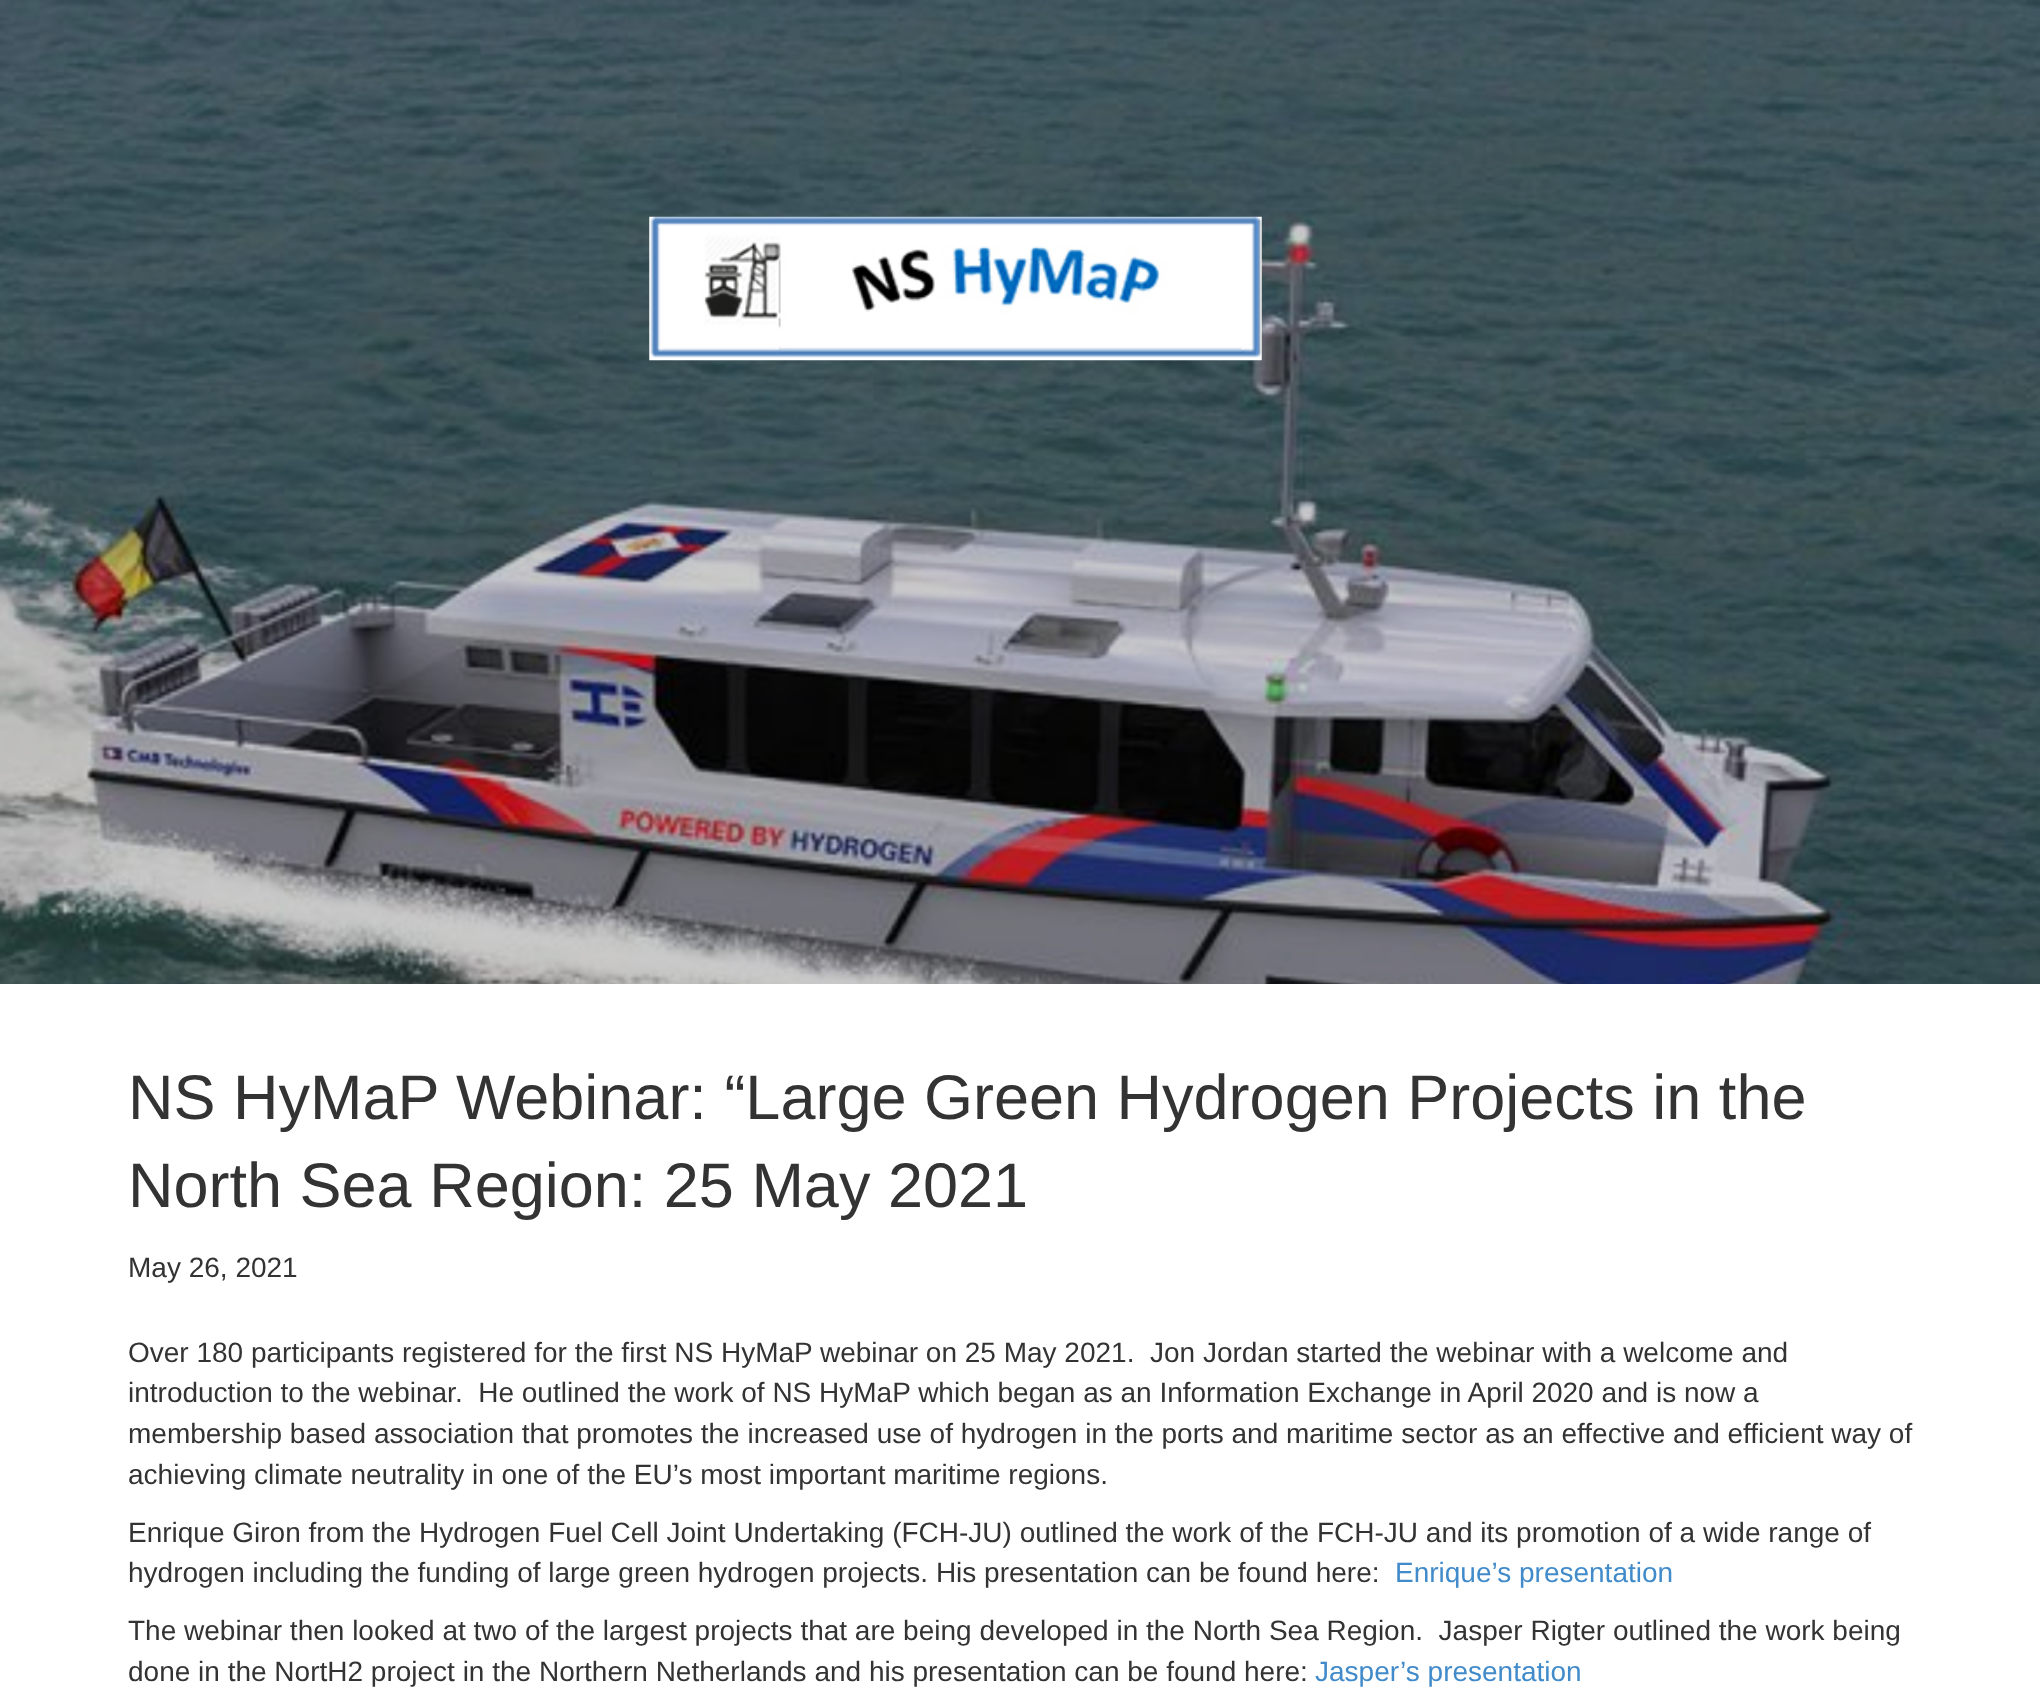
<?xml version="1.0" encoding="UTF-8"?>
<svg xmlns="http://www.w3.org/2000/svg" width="2040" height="1689">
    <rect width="100%" height="100%" fill="#FFFFFF"/>
    <image x="0" y="0" width="2040" height="984" href="img_01.png"/>
    <image x="649" y="216" width="613" height="145" href="img_02.png"/>
    <text font-family="Liberation Sans" font-size="63" fill="#333333">
        <tspan x="128" y="1119">NS HyMaP Webinar: “Large Green Hydrogen Projects in the</tspan>
        <tspan x="128" y="1207">North Sea Region: 25 May 2021</tspan>
    </text>
    <text x="128" y="1277" font-family="Liberation Sans" font-size="28" fill="#333333">May 26, 2021</text>
    <text font-family="Liberation Sans" font-size="28" fill="#333333" xml:space="preserve"><tspan x="128" y="1362">Over 180 participants registered for the first NS HyMaP webinar on 25 May 2021.  Jon Jordan started the webinar with a welcome and</tspan><tspan x="128" y="1402">introduction to the webinar.  He outlined the work of NS HyMaP which began as an Information Exchange in April 2020 and is now a</tspan><tspan x="128" y="1443">membership based association that promotes the increased use of hydrogen in the ports and maritime sector as an effective and efficient way of</tspan><tspan x="128" y="1484">achieving climate neutrality in one of the EU’s most important maritime regions.</tspan></text>
    <text font-family="Liberation Sans" font-size="28" fill="#333333">
        <tspan x="128" y="1542">Enrique Giron from the Hydrogen Fuel Cell Joint Undertaking (FCH-JU) outlined the work of the FCH-JU and its promotion of a wide range of</tspan>
        <tspan x="128" y="1582">hydrogen including the funding of large green hydrogen projects. His presentation can be found here:</tspan>
    </text>
    <text x="1395" y="1582" font-family="Liberation Sans" font-size="28" fill="#428BCA">Enrique’s presentation</text>
    <text font-family="Liberation Sans" font-size="28" fill="#333333" xml:space="preserve"><tspan x="128" y="1640">The webinar then looked at two of the largest projects that are being developed in the North Sea Region.  Jasper Rigter outlined the work being</tspan><tspan x="128" y="1681">done in the NortH2 project in the Northern Netherlands and his presentation can be found here:</tspan></text>
    <text x="1315" y="1681" font-family="Liberation Sans" font-size="28" fill="#428BCA">Jasper’s presentation</text>
</svg>
